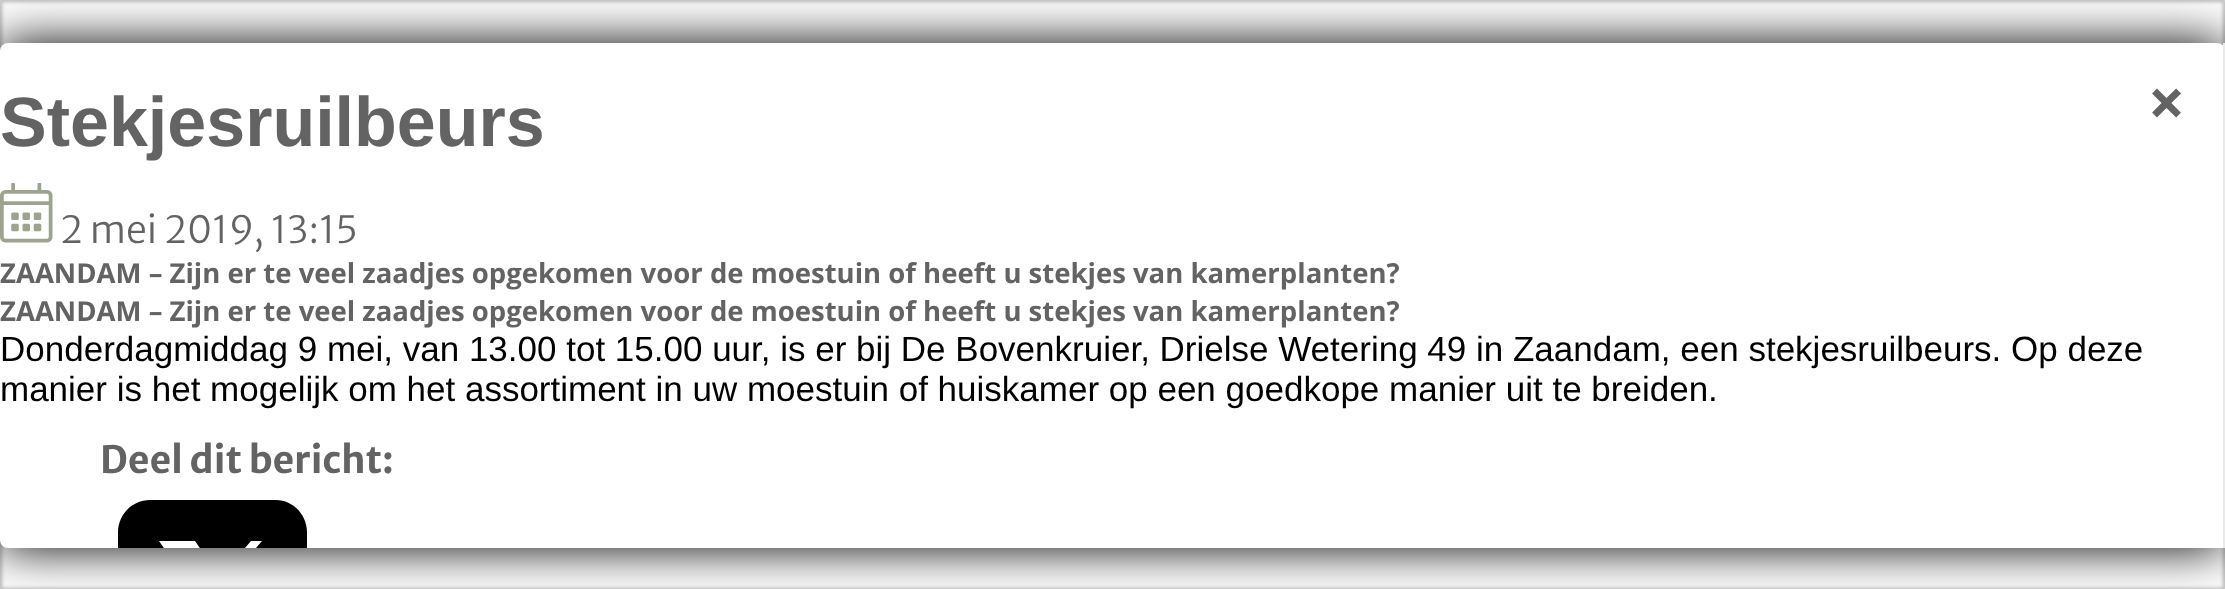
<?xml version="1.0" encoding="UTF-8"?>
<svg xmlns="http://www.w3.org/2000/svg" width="2225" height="589">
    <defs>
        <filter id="blur1" x="-50%" y="-200%" width="200%" height="500%"><feGaussianBlur stdDeviation="2.5"/></filter>
        <filter id="blur2" x="-50%" y="-200%" width="200%" height="500%"><feGaussianBlur stdDeviation="25"/></filter>
        <clipPath id="clip1"><rect x="100" y="483" width="225" height="65"/></clipPath>
    </defs>
    <rect width="100%" height="100%" fill="#FFFFFF"/>
    <rect x="0" y="0" width="2225" height="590" fill="#323232" filter="url(#blur1)"/>
    <rect x="0" y="0" width="2225" height="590" fill="#FFFFFF" filter="url(#blur1)"/>
    <rect x="0" y="43" width="2225" height="505" rx="8" fill="#000000" filter="url(#blur2)"/>
    <rect x="0" y="43" width="2225" height="505" rx="8" fill="#FFFFFF"/>
    <rect x="2223" y="43" width="2" height="505" fill="#EAEAEA"/>
    <text x="0" y="146" font-family="Liberation Sans" font-size="70" font-weight="700" fill="#636363">Stekjesruilbeurs</text>
    <image x="0" y="183" width="53" height="60" href="img_01.png"/>
    <text x="60" y="243" font-family="Merriweather Sans" font-size="37.5" font-weight="300" fill="#636363">2 mei 2019, 13:15</text>
    <text font-family="Open Sans" font-size="27.5" font-weight="700" fill="#636363">
        <tspan x="0" y="283">ZAANDAM – Zijn er te veel zaadjes opgekomen voor de moestuin of heeft u stekjes van kamerplanten?</tspan>
        <tspan x="0" y="321">ZAANDAM – Zijn er te veel zaadjes opgekomen voor de moestuin of heeft u stekjes van kamerplanten?</tspan>
    </text>
    <text font-family="Liberation Sans" font-size="35" fill="#000000">
        <tspan x="0" y="361">Donderdagmiddag 9 mei, van 13.00 tot 15.00 uur, is er bij De Bovenkruier, Drielse Wetering 49 in Zaandam, een stekjesruilbeurs. Op deze</tspan>
        <tspan x="0" y="401">manier is het mogelijk om het assortiment in uw moestuin of huiskamer op een goedkope manier uit te breiden.</tspan>
    </text>
    <text x="100" y="473" font-family="Merriweather Sans" font-size="37.5" font-weight="700" fill="#636363">Deel dit bericht:</text>
    <rect x="2217" y="545" width="6" height="3" fill="#FFFFFF"/>
    <g clip-path="url(#clip1)">
        <path d="M 150 500 C 132 500 118 515 118 532 V 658 C 118 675 132 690 150 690 H 276 C 293 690 307 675 307 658 V 532 C 307 515 293 500 276 500 Z M 159 541 H 195 L 220 577 L 251 541 H 262 L 225 584 L 271 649 H 235 L 205 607 L 170 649 H 158 L 200 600 Z M 176 550 L 240 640 H 253 L 190 550 Z" fill="#000000"/>
    </g>
    <text x="2148" y="126" font-family="Open Sans" font-size="65" font-weight="700" fill="#636363">×</text>
</svg>
